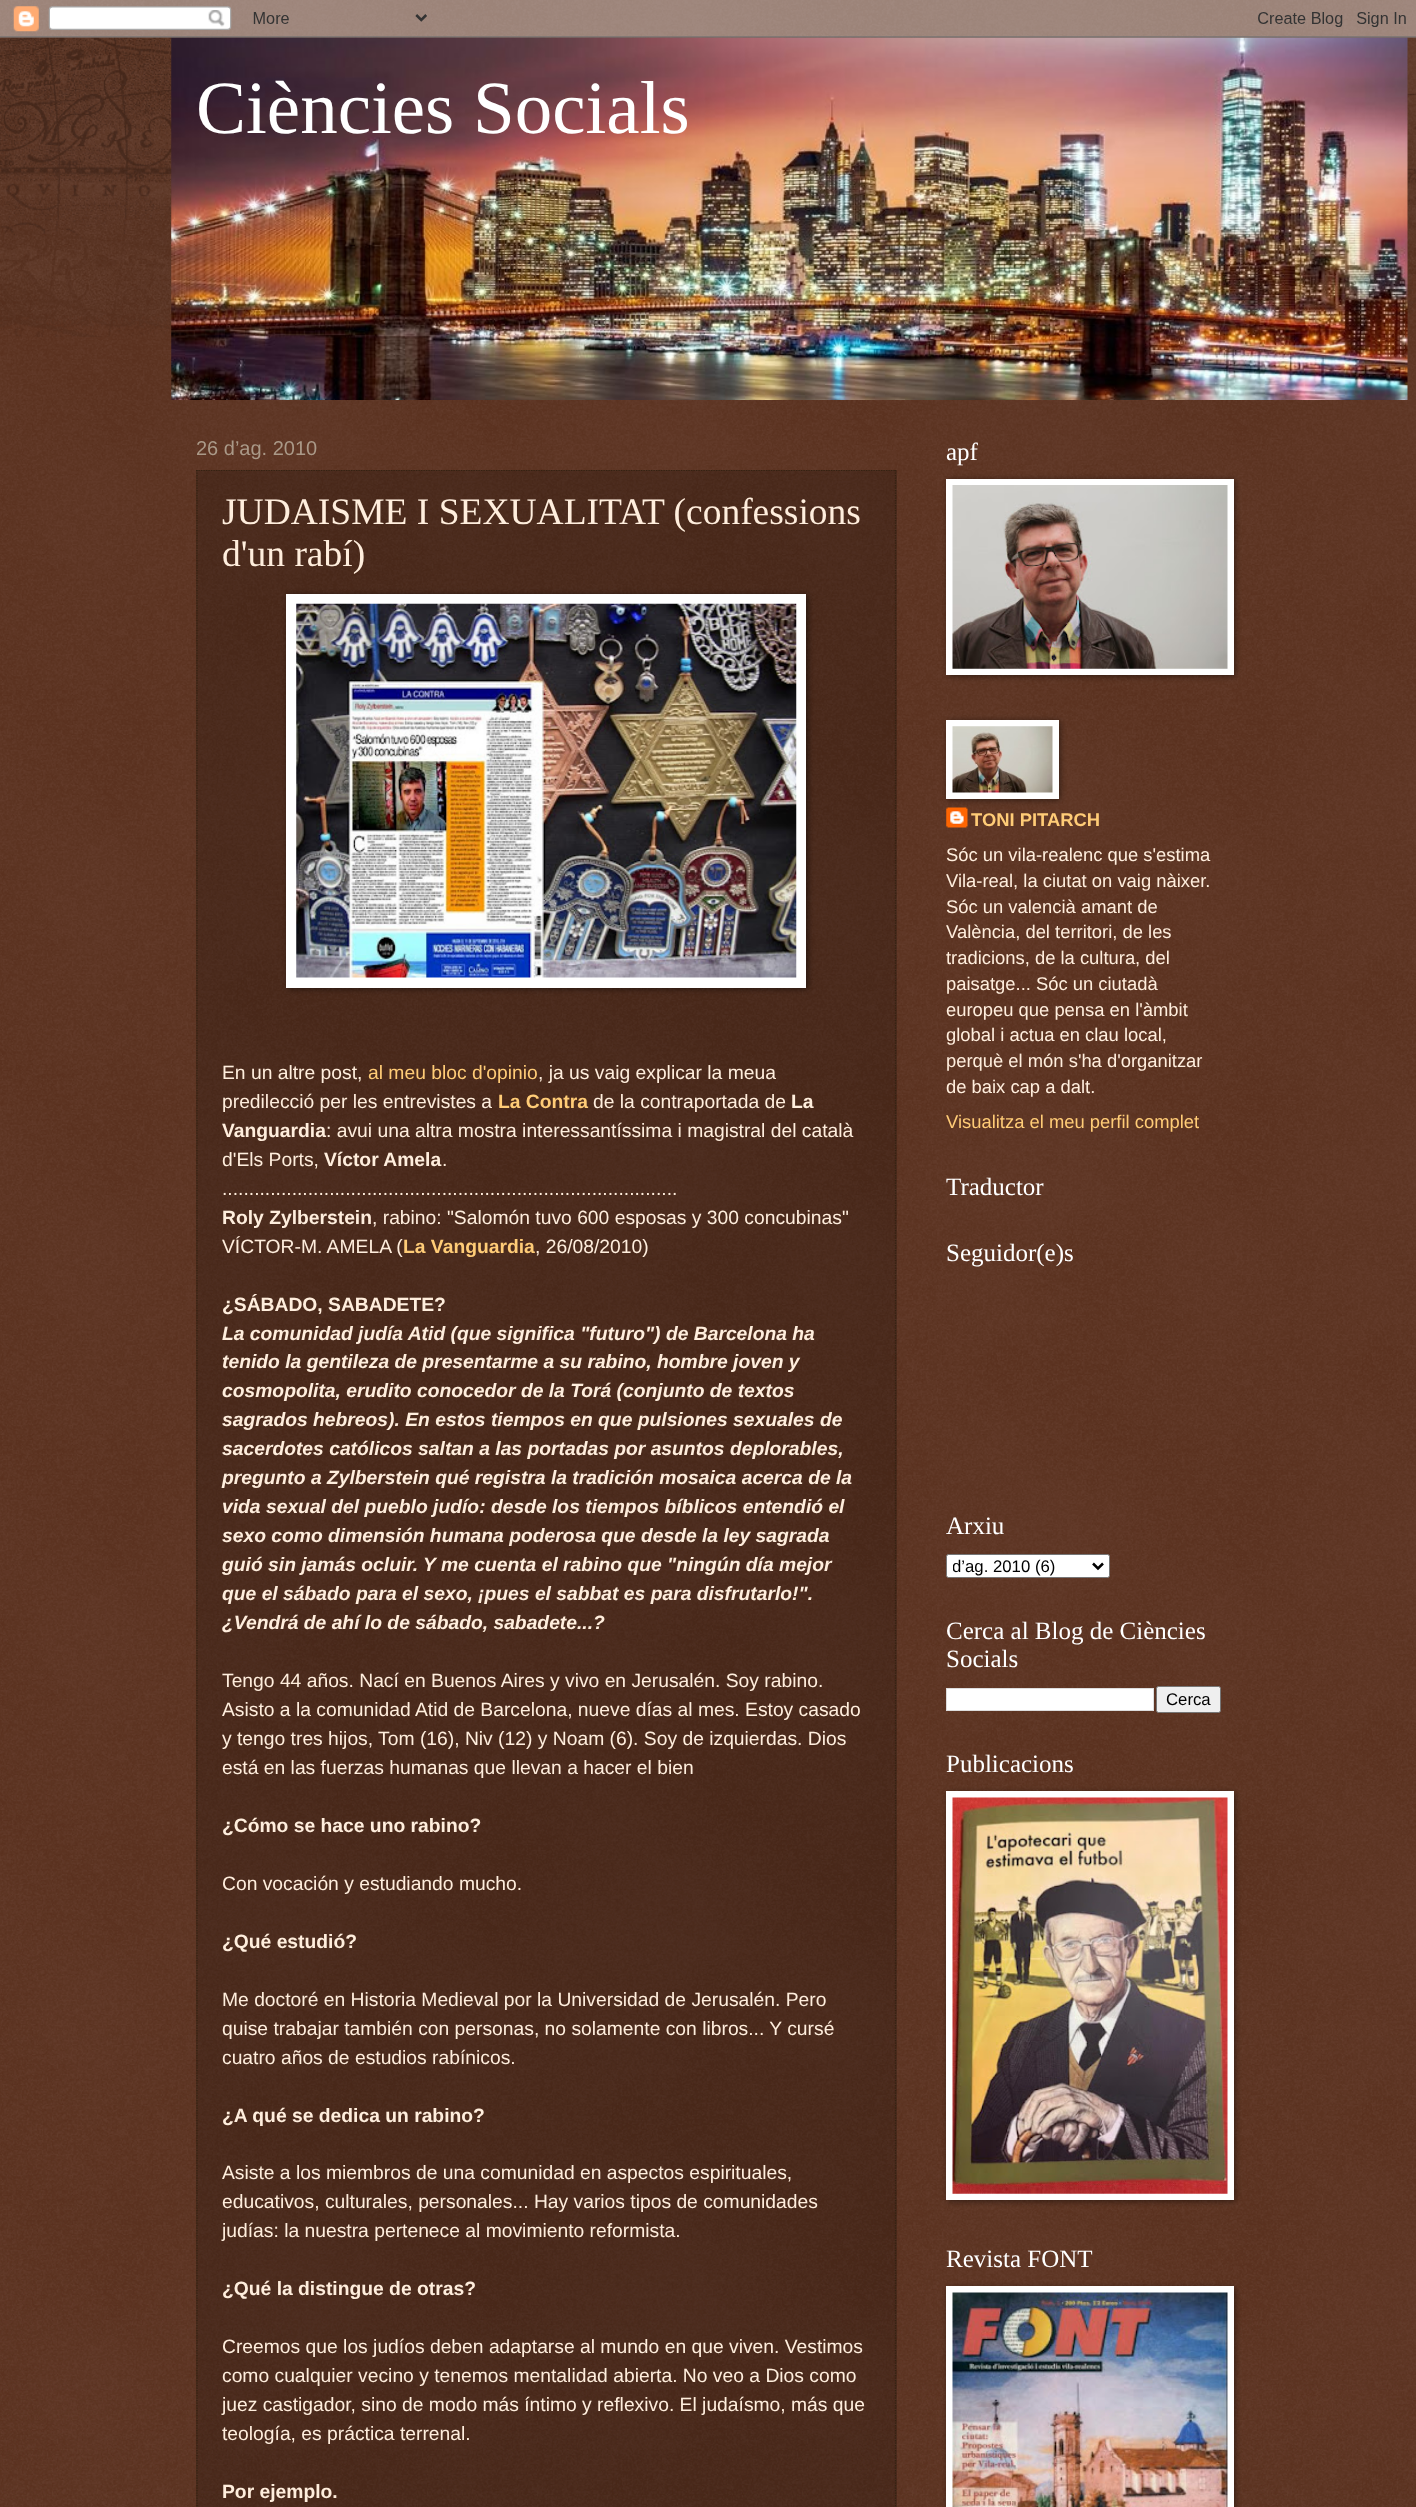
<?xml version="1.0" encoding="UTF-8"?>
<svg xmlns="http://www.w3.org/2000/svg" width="1416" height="2507">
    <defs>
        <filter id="blur1" x="-50%" y="-200%" width="200%" height="500%"><feGaussianBlur stdDeviation="3"/></filter>
        <clipPath id="clip1"><rect x="953" y="1555" width="136" height="21"/></clipPath>
    </defs>
    <rect width="100%" height="100%" fill="#441500"/>
    <image x="0" y="0" width="1416" height="2507" href="img_01.png"/>
    <image x="0" y="37" width="1416" height="300" href="img_03.png"/>
    <image x="171" y="37" width="1237" height="363" href="img_04.png"/>
    <image x="0" y="0" width="1416" height="38" href="img_02.png"/>
    <text x="196" y="133" font-family="Liberation Serif" font-size="75" fill="#FFFFFF">Ciències Socials</text>
    <text x="196" y="455" font-family="Liberation Sans" font-size="20" fill="#AA9988">26 d’ag. 2010</text>
    <rect x="196" y="470" width="701" height="2037" fill="#000000" fill-opacity="0.2"/>
    <path d="M 196 470.5 H 896" fill="none" stroke="#332211" stroke-width="1.2" stroke-dasharray="1.25 1.25"/>
    <path d="M 895.5 470 V 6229" fill="none" stroke="#332211" stroke-width="1.2" stroke-dasharray="1.25 1.25"/>
    <path d="M 197 470 V 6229" fill="none" stroke="#332211" stroke-width="1.2" stroke-dasharray="1.25 1.25"/>
    <text font-family="Liberation Serif" font-size="37.5" fill="#FFEEDD">
        <tspan x="222" y="524">JUDAISME I SEXUALITAT (confessions</tspan>
        <tspan x="222" y="566">d'un rabí)</tspan>
    </text>
    <rect x="288" y="595" width="520" height="394" fill="#000000" fill-opacity="0.5" filter="url(#blur1)"/>
    <rect x="286" y="594" width="520" height="394" fill="#FFFFFF"/>
    <image x="296" y="603" width="501" height="375" href="img_05.png"/>
    <text x="222" y="1079" font-family="Liberation Sans" font-size="19.3" fill="#FFEEDD">En un altre post,</text>
    <text x="368" y="1079" font-family="Liberation Sans" font-size="19.3" fill="#FFCC77">al meu bloc d'opinio</text>
    <text x="538" y="1079" font-family="Liberation Sans" font-size="19.3" fill="#FFEEDD">, ja us vaig explicar la meua</text>
    <text x="222" y="1108" font-family="Liberation Sans" font-size="19.3" fill="#FFEEDD">predilecció per les entrevistes a</text>
    <text x="498" y="1108" font-family="Liberation Sans" font-size="19.3" font-weight="700" fill="#FFCC77">La Contra</text>
    <text x="593" y="1108" font-family="Liberation Sans" font-size="19.3" fill="#FFEEDD">de la contraportada de</text>
    <text x="791" y="1108" font-family="Liberation Sans" font-size="19.3" font-weight="700" fill="#FFEEDD">La</text>
    <text x="222" y="1137" font-family="Liberation Sans" font-size="19.3" font-weight="700" fill="#FFEEDD">Vanguardia</text>
    <text x="326" y="1137" font-family="Liberation Sans" font-size="19.3" fill="#FFEEDD">: avui una altra mostra interessantíssima i magistral del català</text>
    <text x="222" y="1166" font-family="Liberation Sans" font-size="19.3" fill="#FFEEDD">d'Els Ports,</text>
    <text x="324" y="1166" font-family="Liberation Sans" font-size="19.3" font-weight="700" fill="#FFEEDD">Víctor Amela</text>
    <text x="442" y="1166" font-family="Liberation Sans" font-size="19.3" fill="#FFEEDD">.</text>
    <text x="222" y="1195" font-family="Liberation Sans" font-size="19.3" fill="#FFEEDD">.....................................................................................</text>
    <text x="222" y="1224" font-family="Liberation Sans" font-size="19.3" font-weight="700" fill="#FFEEDD">Roly Zylberstein</text>
    <text x="372" y="1224" font-family="Liberation Sans" font-size="19.3" fill="#FFEEDD">, rabino: "Salomón tuvo 600 esposas y 300 concubinas"</text>
    <text x="222" y="1253" font-family="Liberation Sans" font-size="19.3" fill="#FFEEDD">VÍCTOR-M. AMELA (</text>
    <text x="403" y="1253" font-family="Liberation Sans" font-size="19.3" font-weight="700" fill="#FFCC77">La Vanguardia</text>
    <text x="535" y="1253" font-family="Liberation Sans" font-size="19.3" fill="#FFEEDD">, 26/08/2010)</text>
    <text x="222" y="1311" font-family="Liberation Sans" font-size="19.3" font-weight="700" fill="#FFEEDD">¿SÁBADO, SABADETE?</text>
    <text font-family="Liberation Sans" font-size="19.3" font-weight="700" font-style="italic" fill="#FFEEDD">
        <tspan x="222" y="1340">La comunidad judía Atid (que significa "futuro") de Barcelona ha</tspan>
        <tspan x="222" y="1368">tenido la gentileza de presentarme a su rabino, hombre joven y</tspan>
        <tspan x="222" y="1397">cosmopolita, erudito conocedor de la Torá (conjunto de textos</tspan>
        <tspan x="222" y="1426">sagrados hebreos). En estos tiempos en que pulsiones sexuales de</tspan>
        <tspan x="222" y="1455">sacerdotes católicos saltan a las portadas por asuntos deplorables,</tspan>
        <tspan x="222" y="1484">pregunto a Zylberstein qué registra la tradición mosaica acerca de la</tspan>
        <tspan x="222" y="1513">vida sexual del pueblo judío: desde los tiempos bíblicos entendió el</tspan>
        <tspan x="222" y="1542">sexo como dimensión humana poderosa que desde la ley sagrada</tspan>
        <tspan x="222" y="1571">guió sin jamás ocluir. Y me cuenta el rabino que "ningún día mejor</tspan>
        <tspan x="222" y="1600">que el sábado para el sexo, ¡pues el sabbat es para disfrutarlo!".</tspan>
        <tspan x="222" y="1629">¿Vendrá de ahí lo de sábado, sabadete...?</tspan>
    </text>
    <text font-family="Liberation Sans" font-size="19.3" fill="#FFEEDD">
        <tspan x="222" y="1687">Tengo 44 años. Nací en Buenos Aires y vivo en Jerusalén. Soy rabino.</tspan>
        <tspan x="222" y="1716">Asisto a la comunidad Atid de Barcelona, nueve días al mes. Estoy casado</tspan>
        <tspan x="222" y="1745">y tengo tres hijos, Tom (16), Niv (12) y Noam (6). Soy de izquierdas. Dios</tspan>
        <tspan x="222" y="1774">está en las fuerzas humanas que llevan a hacer el bien</tspan>
    </text>
    <text x="222" y="1832" font-family="Liberation Sans" font-size="19.3" font-weight="700" fill="#FFEEDD">¿Cómo se hace uno rabino?</text>
    <text x="222" y="1890" font-family="Liberation Sans" font-size="19.3" fill="#FFEEDD">Con vocación y estudiando mucho.</text>
    <text x="222" y="1948" font-family="Liberation Sans" font-size="19.3" font-weight="700" fill="#FFEEDD">¿Qué estudió?</text>
    <text font-family="Liberation Sans" font-size="19.3" fill="#FFEEDD">
        <tspan x="222" y="2006">Me doctoré en Historia Medieval por la Universidad de Jerusalén. Pero</tspan>
        <tspan x="222" y="2035">quise trabajar también con personas, no solamente con libros... Y cursé</tspan>
        <tspan x="222" y="2064">cuatro años de estudios rabínicos.</tspan>
    </text>
    <text x="222" y="2122" font-family="Liberation Sans" font-size="19.3" font-weight="700" fill="#FFEEDD">¿A qué se dedica un rabino?</text>
    <text font-family="Liberation Sans" font-size="19.3" fill="#FFEEDD">
        <tspan x="222" y="2179">Asiste a los miembros de una comunidad en aspectos espirituales,</tspan>
        <tspan x="222" y="2208">educativos, culturales, personales... Hay varios tipos de comunidades</tspan>
        <tspan x="222" y="2237">judías: la nuestra pertenece al movimiento reformista.</tspan>
    </text>
    <text x="222" y="2295" font-family="Liberation Sans" font-size="19.3" font-weight="700" fill="#FFEEDD">¿Qué la distingue de otras?</text>
    <text font-family="Liberation Sans" font-size="19.3" fill="#FFEEDD">
        <tspan x="222" y="2353">Creemos que los judíos deben adaptarse al mundo en que viven. Vestimos</tspan>
        <tspan x="222" y="2382">como cualquier vecino y tenemos mentalidad abierta. No veo a Dios como</tspan>
        <tspan x="222" y="2411">juez castigador, sino de modo más íntimo y reflexivo. El judaísmo, más que</tspan>
        <tspan x="222" y="2440">teología, es práctica terrenal.</tspan>
    </text>
    <text x="222" y="2498" font-family="Liberation Sans" font-size="19.3" font-weight="700" fill="#FFEEDD">Por ejemplo.</text>
    <text x="946" y="460" font-family="Liberation Serif" font-size="25" fill="#FFFFFF">apf</text>
    <rect x="948" y="480" width="287" height="196" fill="#000000" fill-opacity="0.5" filter="url(#blur1)"/>
    <rect x="946" y="479" width="288" height="196" fill="#FFFFFF"/>
    <image x="952" y="485" width="276" height="184" href="img_06.png"/>
    <image x="946" y="807" width="22" height="21" href="img_08.png"/>
    <rect x="948" y="721" width="112" height="79" fill="#000000" fill-opacity="0.5" filter="url(#blur1)"/>
    <rect x="946" y="720" width="113" height="79" fill="#FFFFFF"/>
    <image x="952" y="726" width="101" height="67" href="img_07.png"/>
    <text x="971" y="826" font-family="Liberation Sans" font-size="18.4" font-weight="700" fill="#FFCC77">TONI PITARCH</text>
    <text font-family="Liberation Sans" font-size="18.4" fill="#FFEEDD">
        <tspan x="946" y="861">Sóc un vila-realenc que s'estima</tspan>
        <tspan x="946" y="887">Vila-real, la ciutat on vaig nàixer.</tspan>
        <tspan x="946" y="913">Sóc un valencià amant de</tspan>
        <tspan x="946" y="938">València, del territori, de les</tspan>
        <tspan x="946" y="964">tradicions, de la cultura, del</tspan>
        <tspan x="946" y="990">paisatge... Sóc un ciutadà</tspan>
        <tspan x="946" y="1016">europeu que pensa en l'àmbit</tspan>
        <tspan x="946" y="1041">global i actua en clau local,</tspan>
        <tspan x="946" y="1067">perquè el món s'ha d'organitzar</tspan>
        <tspan x="946" y="1093">de baix cap a dalt.</tspan>
    </text>
    <text x="946" y="1128" font-family="Liberation Sans" font-size="18.4" fill="#FFCC77">Visualitza el meu perfil complet</text>
    <text x="946" y="1195" font-family="Liberation Serif" font-size="25" fill="#FFFFFF">Traductor</text>
    <text x="946" y="1261" font-family="Liberation Serif" font-size="25" fill="#FFFFFF">Seguidor(e)s</text>
    <text x="946" y="1534" font-family="Liberation Serif" font-size="25" fill="#FFFFFF">Arxiu</text>
    <rect x="946.5" y="1554.5" width="163" height="23" rx="2" fill="#FFFFFF" stroke="#767676"/>
    <path d="M 1093 1563.5 L 1098 1568.5 L 1103 1563.5" fill="none" stroke="#000000" stroke-width="2.5"/>
    <g clip-path="url(#clip1)">
        <text x="952" y="1572" font-family="Liberation Sans" font-size="16.75" fill="#000000">d’ag. 2010 (6)</text>
    </g>
    <text font-family="Liberation Serif" font-size="25" fill="#FFFFFF">
        <tspan x="946" y="1639">Cerca al Blog de Ciències</tspan>
        <tspan x="946" y="1667">Socials</tspan>
    </text>
    <rect x="946.5" y="1688.5" width="207" height="22" fill="#FFFFFF" stroke="#DDDDDD"/>
    <rect x="1156.5" y="1686.5" width="64" height="26" rx="2" fill="#EFEFEF" stroke="#767676"/>
    <text x="1166" y="1705" font-family="Liberation Sans" font-size="16.75" fill="#000000">Cerca</text>
    <text x="946" y="1772" font-family="Liberation Serif" font-size="25" fill="#FFFFFF">Publicacions</text>
    <rect x="948" y="1793" width="287" height="408" fill="#000000" fill-opacity="0.5" filter="url(#blur1)"/>
    <rect x="946" y="1791" width="288" height="409" fill="#FFFFFF"/>
    <image x="952" y="1797" width="276" height="397" href="img_09.png"/>
    <text x="946" y="2267" font-family="Liberation Serif" font-size="25" fill="#FFFFFF">Revista FONT</text>
    <rect x="948" y="2288" width="287" height="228" fill="#000000" fill-opacity="0.5" filter="url(#blur1)"/>
    <rect x="946" y="2286" width="288" height="221" fill="#FFFFFF"/>
    <image x="952" y="2292" width="276" height="215" href="img_10.png"/>
</svg>
